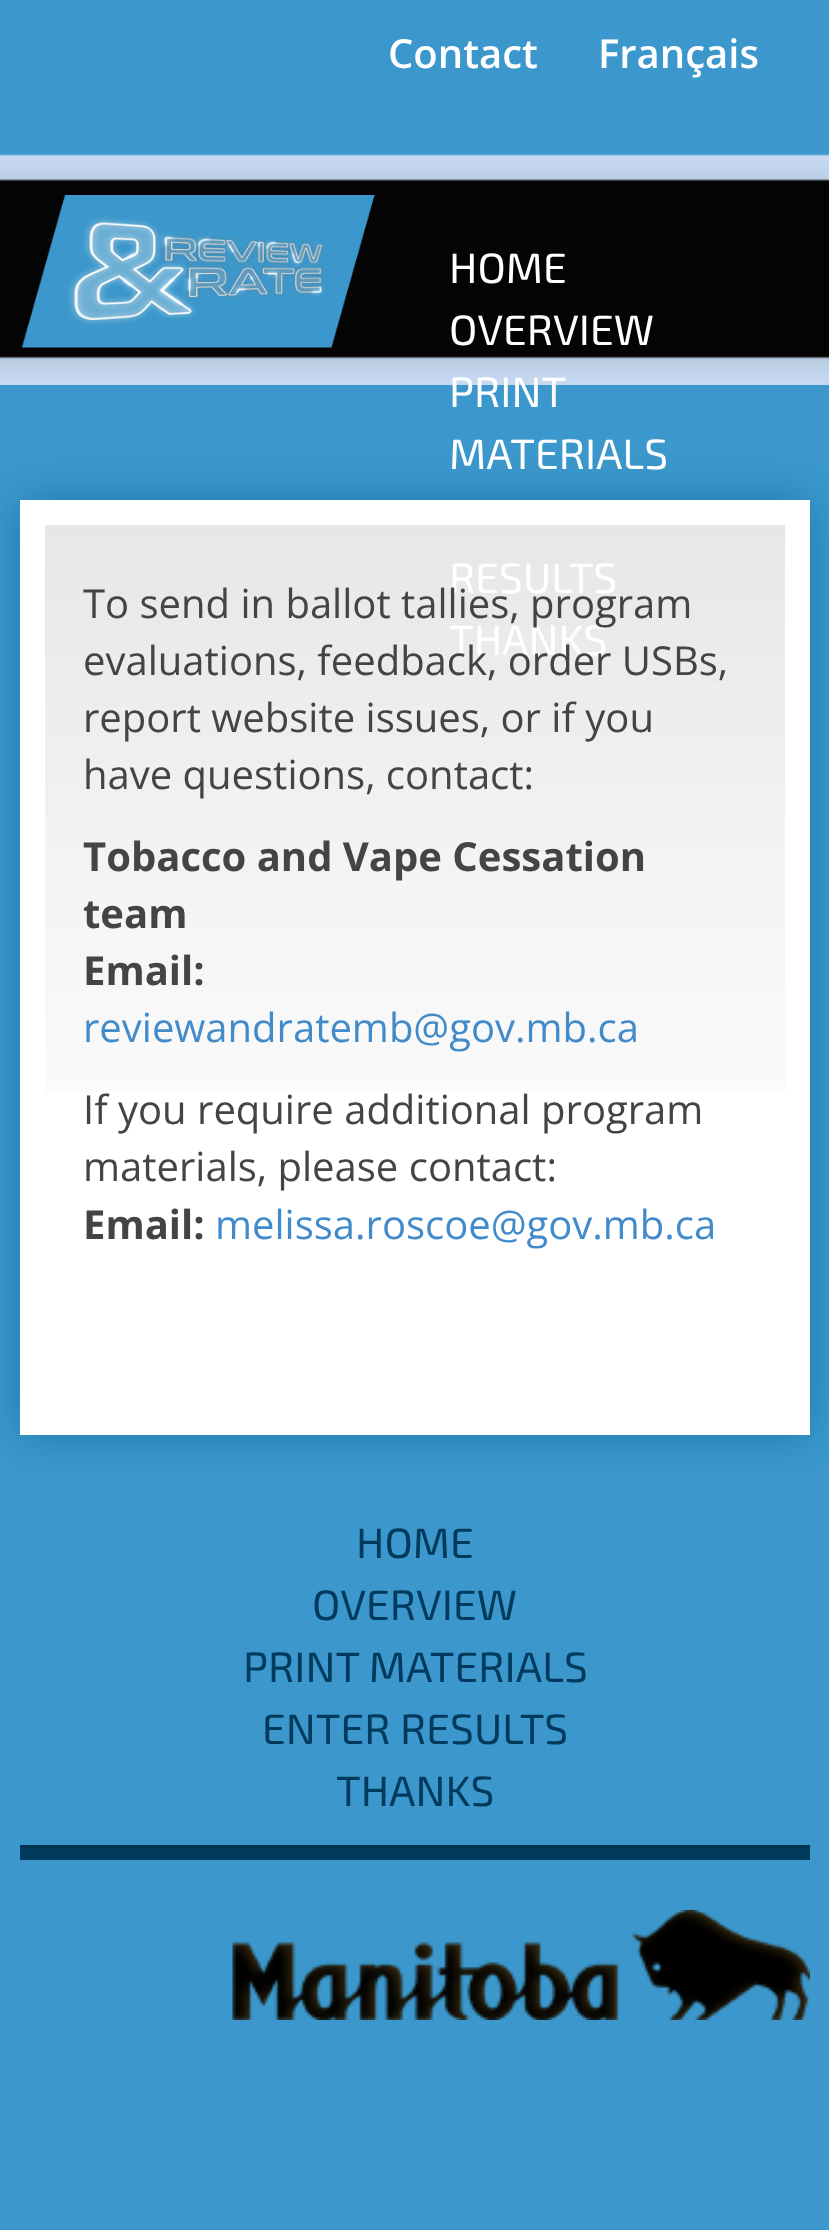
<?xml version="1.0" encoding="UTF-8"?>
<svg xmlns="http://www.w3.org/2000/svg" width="829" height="2230">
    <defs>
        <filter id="blur1" x="-50%" y="-200%" width="200%" height="500%"><feGaussianBlur stdDeviation="22.5"/></filter>
    </defs>
    <rect width="100%" height="100%" fill="#3C98CC"/>
    <image x="0" y="154" width="829" height="231" href="img_01.png"/>
    <text x="388" y="68" font-family="Open Sans" font-size="40" font-weight="600" fill="#FFFFFF">Contact</text>
    <text x="598" y="68" font-family="Open Sans" font-size="40" font-weight="600" fill="#FFFFFF">Français</text>
    <image x="21" y="195" width="354" height="153" href="img_02.png"/>
    <text font-family="'Exo 2'" font-size="42.5" fill="#FFFFFF">
        <tspan x="449" y="283">HOME</tspan>
        <tspan x="449" y="345">OVERVIEW</tspan>
        <tspan x="449" y="407">PRINT</tspan>
    </text>
    <rect x="20" y="500" width="790" height="935" fill="#00629A" fill-opacity="0.6" filter="url(#blur1)"/>
    <text x="449" y="469" font-family="'Exo 2'" font-size="42.5" fill="#FFFFFF">MATERIALS</text>
    <image x="45" y="525" width="740" height="567" href="img_03.png"/>
    <rect x="45" y="1092" width="740" height="318" fill="#FFFFFF"/>
    <rect x="32.5" y="512.5" width="765" height="910" fill="none" stroke="#FFFFFF" stroke-width="25"/>
    <text font-family="'Exo 2'" font-size="42.5" fill="#FFFFFF">
        <tspan x="449" y="593">RESULTS</tspan>
        <tspan x="449" y="655">THANKS</tspan>
    </text>
    <text font-family="Open Sans" font-size="40" fill="#444444">
        <tspan x="83" y="618">To send in ballot tallies, program</tspan>
        <tspan x="83" y="675">evaluations, feedback, order USBs,</tspan>
        <tspan x="83" y="732">report website issues, or if you</tspan>
        <tspan x="83" y="789">have questions, contact:</tspan>
    </text>
    <text font-family="Open Sans" font-size="40" font-weight="700" fill="#444444">
        <tspan x="83" y="871">Tobacco and Vape Cessation</tspan>
        <tspan x="83" y="928">team</tspan>
        <tspan x="83" y="985">Email:</tspan>
    </text>
    <text x="83" y="1042" font-family="Open Sans" font-size="40" fill="#428BCA">reviewandratemb@gov.mb.ca</text>
    <text font-family="Open Sans" font-size="40" fill="#444444">
        <tspan x="83" y="1124">If you require additional program</tspan>
        <tspan x="83" y="1181">materials, please contact:</tspan>
    </text>
    <text x="83" y="1239" font-family="Open Sans" font-size="40" font-weight="700" fill="#444444">Email:</text>
    <text x="215" y="1239" font-family="Open Sans" font-size="40" fill="#428BCA">melissa.roscoe@gov.mb.ca</text>
    <text x="356" y="1558" font-family="'Exo 2'" font-size="42.5" fill="#003B5D">HOME</text>
    <text x="312" y="1620" font-family="'Exo 2'" font-size="42.5" fill="#003B5D">OVERVIEW</text>
    <text x="243" y="1682" font-family="'Exo 2'" font-size="42.5" fill="#003B5D">PRINT MATERIALS</text>
    <text x="262" y="1744" font-family="'Exo 2'" font-size="42.5" fill="#003B5D">ENTER RESULTS</text>
    <text x="336" y="1806" font-family="'Exo 2'" font-size="42.5" fill="#003B5D">THANKS</text>
    <image x="20" y="1845" width="790" height="15" href="img_04.png"/>
    <image x="232" y="1910" width="578" height="110" href="img_05.png"/>
</svg>
